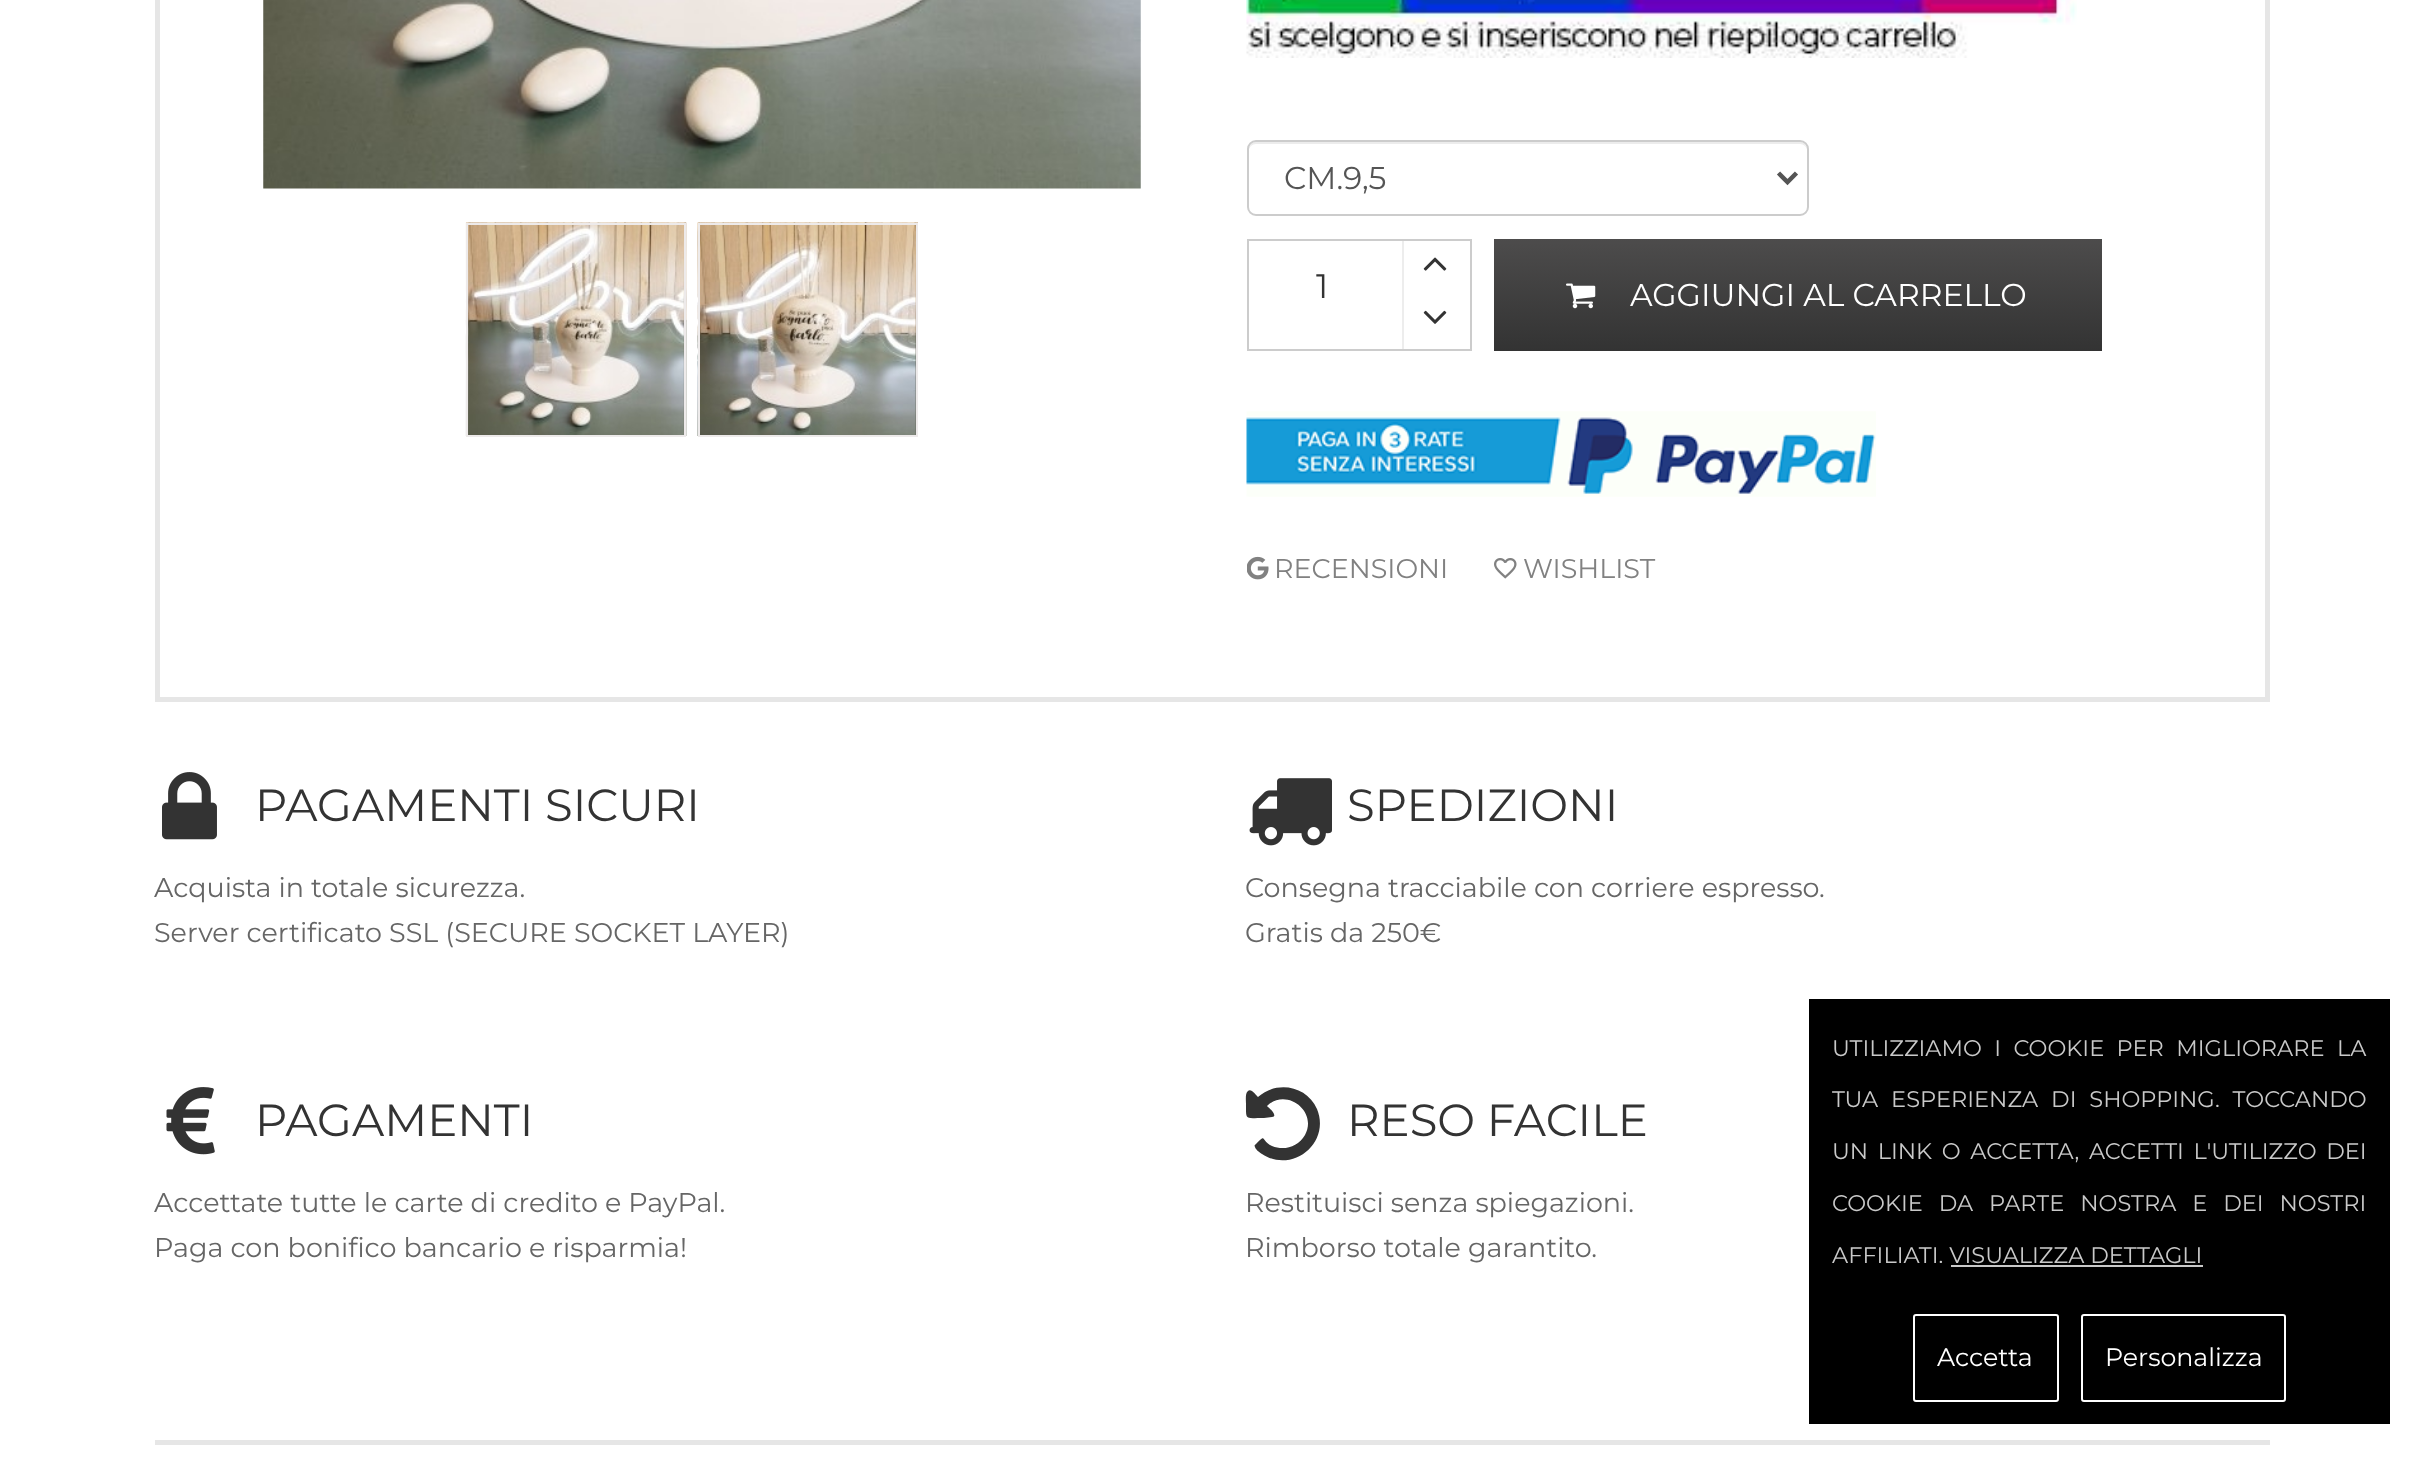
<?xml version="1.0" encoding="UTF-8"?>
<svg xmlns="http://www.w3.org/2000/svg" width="2422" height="1458">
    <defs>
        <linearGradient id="g1" gradientUnits="userSpaceOnUse" x1="1798" y1="238" x2="1798" y2="351"><stop offset="0" stop-color="#4D4C4C"/><stop offset="1" stop-color="#333333"/></linearGradient>
    </defs>
    <rect width="100%" height="100%" fill="#FFFFFF"/>
    <rect x="157.5" y="-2.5" width="2110" height="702" fill="none" stroke="#E6E6E6" stroke-width="5"/>
    <image x="263" y="0" width="878" height="189" href="img_01.png"/>
    <image x="465" y="222" width="222" height="214" href="img_02.png"/>
    <rect x="467" y="224" width="218" height="212" fill="none" stroke="#EDEAEA" stroke-width="2"/>
    <image x="697" y="222" width="221" height="214" href="img_03.png"/>
    <rect x="699" y="224" width="218" height="212" fill="none" stroke="#EDEAEA" stroke-width="2"/>
    <image x="1246" y="0" width="831" height="58" href="img_04.png"/>
    <path d="M 1256 144 H 1800 C 1804 144 1807 147 1807 151 C 1807 147 1805 142 1800 142 H 1256 C 1251 142 1249 147 1249 151 C 1249 147 1252 144 1256 144 Z" fill="#ECECEC"/>
    <rect x="1248" y="141" width="560" height="74" rx="8" fill="none" stroke="#CCCCCC" stroke-width="2"/>
    <path d="M 1778.5 173 L 1787.5 182 L 1796.5 173" fill="none" stroke="#555555" stroke-width="4.5"/>
    <text x="1284" y="189" font-family="Montserrat" font-size="31.5" fill="#555555">CM.9,5</text>
    <rect x="1248" y="240" width="223" height="110" fill="none" stroke="#CCCCCC" stroke-width="2"/>
    <text x="1316" y="298" font-family="Montserrat" font-size="34" fill="#333333">1</text>
    <rect x="1402" y="241" width="2" height="108" fill="#EDEDED"/>
    <image x="1423" y="257" width="24" height="14" href="img_05.png"/>
    <image x="1423" y="310" width="24" height="14" href="img_06.png"/>
    <rect x="1494" y="239" width="608" height="112" fill="url(#g1)"/>
    <image x="1566" y="283" width="30" height="26" href="img_07.png"/>
    <text x="1630" y="306" font-family="Montserrat" font-size="31.5" fill="#FFFFFF">AGGIUNGI AL CARRELLO</text>
    <image x="1246" y="411" width="630" height="86" href="img_08.png"/>
    <image x="1247" y="556" width="22" height="24" href="img_09.png"/>
    <text x="1274" y="578" font-family="Montserrat" font-size="27" fill="#818181">RECENSIONI</text>
    <image x="1494" y="558" width="23" height="21" href="img_10.png"/>
    <text x="1523" y="578" font-family="Montserrat" font-size="27" fill="#818181">WISHLIST</text>
    <image x="162" y="772" width="55" height="68" href="img_11.png"/>
    <text x="255" y="821" font-family="Montserrat" font-size="45" fill="#333333">PAGAMENTI SICURI</text>
    <text font-family="Montserrat" font-size="27" fill="#666666">
        <tspan x="154" y="897">Acquista in totale sicurezza.</tspan>
        <tspan x="154" y="942">Server certificato SSL (SECURE SOCKET LAYER)</tspan>
    </text>
    <image x="1249" y="778" width="83" height="68" href="img_12.png"/>
    <text x="1347" y="821" font-family="Montserrat" font-size="45" fill="#333333">SPEDIZIONI</text>
    <text font-family="Montserrat" font-size="27" fill="#666666">
        <tspan x="1245" y="897">Consegna tracciabile con corriere espresso.</tspan>
        <tspan x="1245" y="942">Gratis da 250€</tspan>
    </text>
    <image x="166" y="1087" width="49" height="68" href="img_13.png"/>
    <text x="255" y="1136" font-family="Montserrat" font-size="45" fill="#333333">PAGAMENTI</text>
    <text font-family="Montserrat" font-size="27" fill="#666666">
        <tspan x="154" y="1212">Accettate tutte le carte di credito e PayPal.</tspan>
        <tspan x="154" y="1257">Paga con bonifico bancario e risparmia!</tspan>
    </text>
    <path d="M 1317 1109 C 1331 1143 1292 1174 1262 1154 C 1260 1153 1255 1149 1255 1147 C 1254 1145 1255 1145 1256 1144 C 1267 1133 1260 1140 1272 1146 C 1284 1151 1298 1147 1305 1135 C 1318 1111 1286 1087 1267 1106 C 1268 1107 1279 1116 1272 1117 L 1264 1118 C 1245 1118 1246 1121 1246 1104 C 1246 1101 1245 1093 1248 1091 C 1251 1088 1256 1095 1258 1097 C 1277 1080 1307 1086 1317 1109 Z" fill="#333333"/>
    <text x="1347" y="1136" font-family="Montserrat" font-size="45" fill="#333333">RESO FACILE</text>
    <text font-family="Montserrat" font-size="27" fill="#666666">
        <tspan x="1245" y="1212">Restituisci senza spiegazioni.</tspan>
        <tspan x="1245" y="1257">Rimborso totale garantito.</tspan>
    </text>
    <rect x="155" y="1440" width="2115" height="5" fill="#E6E6E6"/>
    <rect x="1809" y="999" width="581" height="425" fill="#000000"/>
    <text x="1832" y="1056" word-spacing="6.5" font-family="Montserrat" font-size="22.5" fill="#C9C9C9">UTILIZZIAMO I COOKIE PER MIGLIORARE LA</text>
    <text x="1832" y="1107" word-spacing="7" font-family="Montserrat" font-size="22.5" fill="#C9C9C9">TUA ESPERIENZA DI SHOPPING. TOCCANDO</text>
    <text x="1832" y="1159" word-spacing="3.75" font-family="Montserrat" font-size="22.5" fill="#C9C9C9">UN LINK O ACCETTA, ACCETTI L'UTILIZZO DEI</text>
    <text x="1832" y="1211" word-spacing="10" font-family="Montserrat" font-size="22.5" fill="#C9C9C9">COOKIE DA PARTE NOSTRA E DEI NOSTRI</text>
    <text x="1832" y="1263" font-family="Montserrat" font-size="22.5" fill="#C9C9C9">AFFILIATI. VISUALIZZA DETTAGLI</text>
    <rect x="1951" y="1265" width="252" height="2" fill="#C9C9C9"/>
    <rect x="1914" y="1315" width="144" height="86" rx="2" fill="none" stroke="#FFFFFF" stroke-width="2"/>
    <text x="1937" y="1366" font-family="Montserrat" font-size="25.25" fill="#FFFFFF">Accetta</text>
    <rect x="2082" y="1315" width="203" height="86" rx="2" fill="none" stroke="#FFFFFF" stroke-width="2"/>
    <text x="2105" y="1366" font-family="Montserrat" font-size="25.25" fill="#FFFFFF">Personalizza</text>
</svg>
